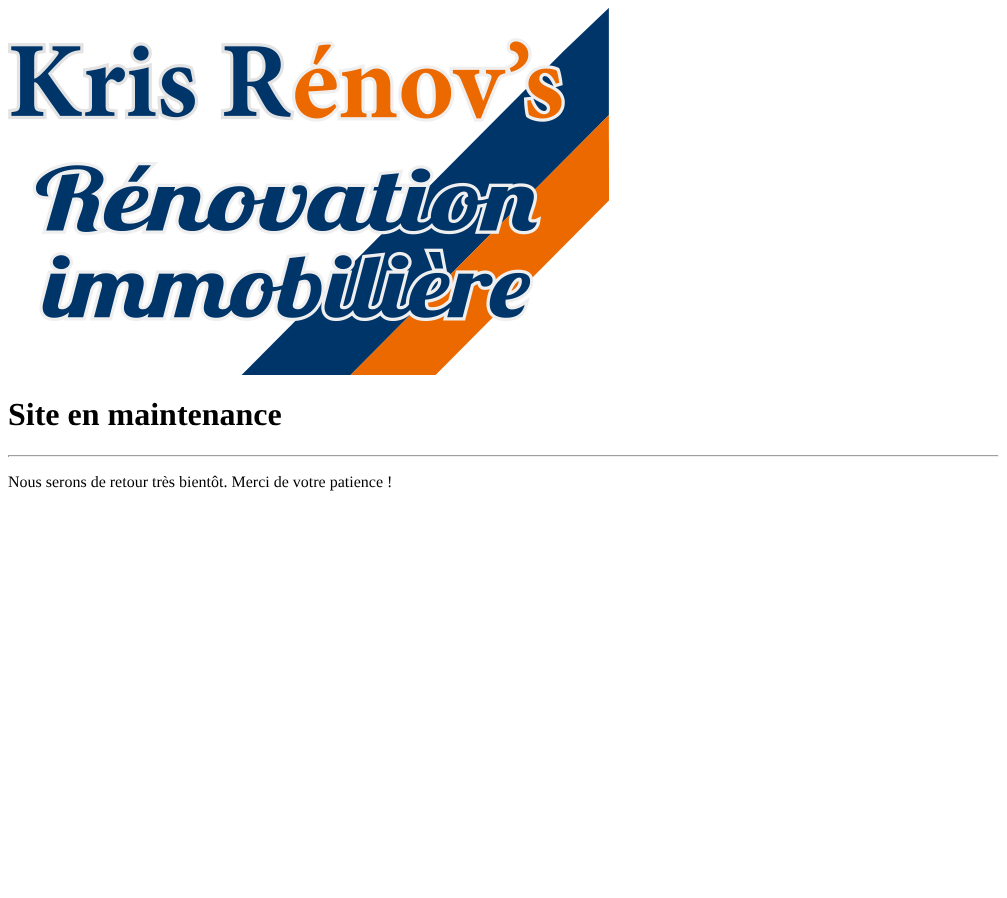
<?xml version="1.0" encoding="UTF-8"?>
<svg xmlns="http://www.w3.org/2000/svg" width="1007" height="898">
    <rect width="100%" height="100%" fill="#FFFFFF"/>
    <image x="8" y="8" width="601" height="367" href="img_01.png"/>
    <text x="8" y="425" font-family="Liberation Serif" font-size="32" font-weight="700" fill="#000000">Site en maintenance</text>
    <rect x="8" y="455" width="991" height="1" fill="#9F9F9F"/>
    <rect x="998" y="455" width="1" height="2" fill="#EEEEEE"/>
    <rect x="8" y="456" width="991" height="1" fill="#EEEEEE"/>
    <rect x="8" y="455" width="1" height="2" fill="#9F9F9F"/>
    <text x="8" y="487" font-family="Liberation Serif" font-size="16" fill="#000000">Nous serons de retour très bientôt. Merci de votre patience !</text>
</svg>
